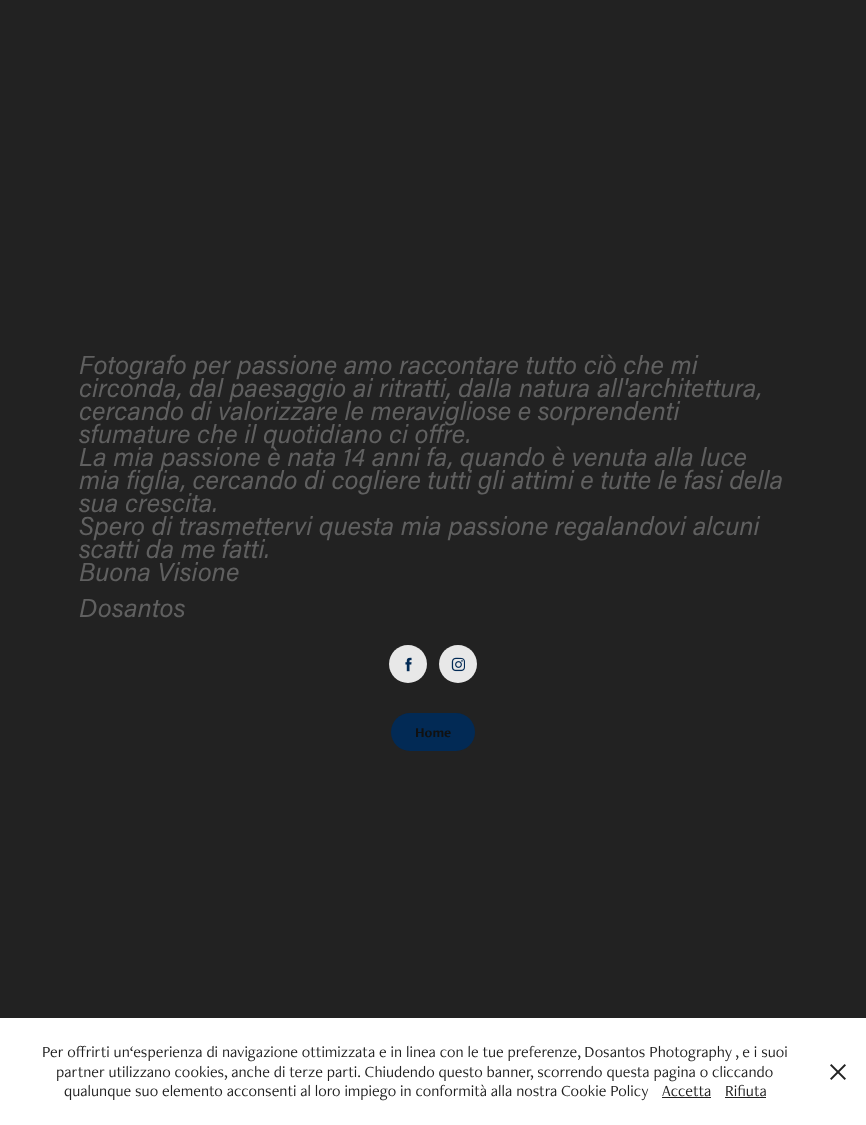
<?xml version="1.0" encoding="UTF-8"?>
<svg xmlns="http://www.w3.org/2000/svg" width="866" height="1125">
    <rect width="100%" height="100%" fill="#222222"/>
    <text font-family="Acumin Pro" font-size="26" font-style="italic" fill="#606060">
        <tspan x="79" y="374">Fotografo per passione amo raccontare tutto ciò che mi</tspan>
        <tspan x="79" y="397">circonda, dal paesaggio ai ritratti, dalla natura all'architettura,</tspan>
        <tspan x="79" y="420">cercando di valorizzare le meravigliose e sorprendenti</tspan>
        <tspan x="79" y="443">sfumature che il quotidiano ci offre.</tspan>
        <tspan x="79" y="466">La mia passione è nata 14 anni fa, quando è venuta alla luce</tspan>
        <tspan x="79" y="489">mia figlia, cercando di cogliere tutti gli attimi e tutte le fasi della</tspan>
        <tspan x="79" y="512">sua crescita.</tspan>
        <tspan x="79" y="535">Spero di trasmettervi questa mia passione regalandovi alcuni</tspan>
        <tspan x="79" y="558">scatti da me fatti.</tspan>
        <tspan x="79" y="581">Buona Visione</tspan>
        <tspan x="79" y="617">Dosantos</tspan>
    </text>
    <circle cx="408" cy="664" r="19" fill="#E8E8E8"/>
    <image x="405" y="657" width="7" height="15" href="img_01.png"/>
    <circle cx="458" cy="664" r="19" fill="#E8E8E8"/>
    <image x="451" y="657" width="14" height="15" href="img_02.png"/>
    <rect x="391" y="713" width="84" height="38" rx="19" fill="#022A55"/>
    <text x="415" y="737" font-family="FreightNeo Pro" font-size="14" font-weight="700" fill="#111111">Home</text>
    <rect x="0" y="1018" width="866" height="107" fill="#FFFFFF"/>
    <text x="42" y="1057" font-family="FreightNeo Pro" font-size="16" fill="#212121">Per offrirti un‘esperienza di navigazione ottimizzata e in linea con le tue preferenze, Dosantos Photography , e i suoi</text>
    <text x="56" y="1077" font-family="FreightNeo Pro" font-size="16" fill="#212121">partner utilizzano cookies, anche di terze parti. Chiudendo questo banner, scorrendo questa pagina o cliccando</text>
    <text x="64" y="1096" font-family="FreightNeo Pro" font-size="16" fill="#212121">qualunque suo elemento acconsenti al loro impiego in conformità alla nostra Cookie Policy</text>
    <text x="662" y="1096" font-family="FreightNeo Pro" font-size="16" fill="#212121">Accetta</text>
    <rect x="662" y="1097" width="49" height="1" fill="#212121"/>
    <text x="725" y="1096" font-family="FreightNeo Pro" font-size="16" fill="#212121">Rifiuta</text>
    <rect x="725" y="1097" width="41" height="1" fill="#212121"/>
    <image x="830" y="1064" width="16" height="16" href="img_03.png"/>
</svg>
